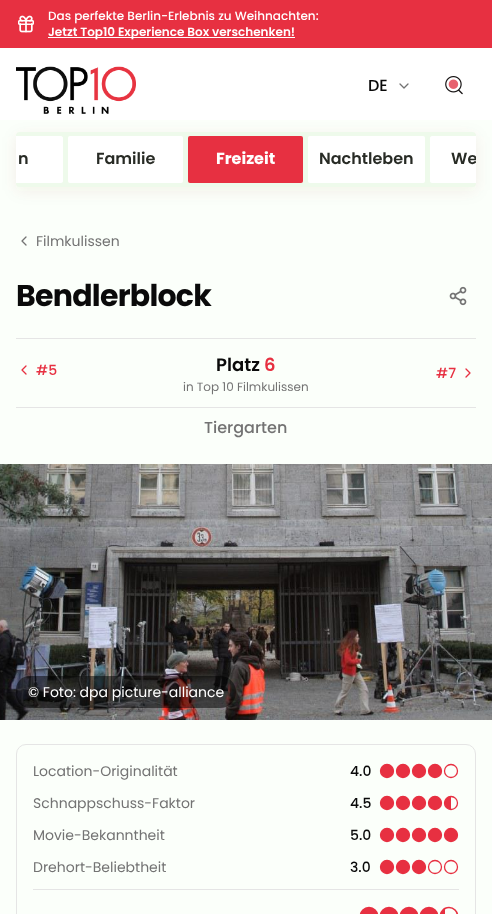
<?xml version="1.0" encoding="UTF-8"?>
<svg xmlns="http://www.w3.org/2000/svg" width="492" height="914">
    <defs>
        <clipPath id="clip1"><path d="M 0 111 H 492 V 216 H 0 Z M 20 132 H 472 C 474 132 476 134 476 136 V 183 C 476 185 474 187 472 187 H 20 C 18 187 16 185 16 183 V 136 C 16 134 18 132 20 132 Z" clip-rule="evenodd"/></clipPath>
        <filter id="blur1" x="-50%" y="-200%" width="200%" height="500%"><feGaussianBlur stdDeviation="8"/></filter>
        <clipPath id="clip2"><rect x="16" y="132" width="460" height="55" rx="4"/></clipPath>
        <clipPath id="clip3"><rect x="443" y="795" width="8" height="16"/></clipPath>
        <clipPath id="clip4"><rect x="451" y="795" width="8" height="16"/></clipPath>
        <clipPath id="clip5"><rect x="439" y="906" width="6" height="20"/></clipPath>
        <clipPath id="clip6"><rect x="445" y="906" width="14" height="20"/></clipPath>
    </defs>
    <rect width="100%" height="100%" fill="#FBFFFA"/>
    <rect x="0" y="0" width="492" height="48" fill="#E73041"/>
    <image x="18" y="15" width="16" height="18" href="img_01.png"/>
    <text x="48" y="20" font-family="Poppins" font-size="12" font-weight="500" fill="#FFFFFF">Das perfekte Berlin-Erlebnis zu Weihnachten:</text>
    <rect x="48" y="37" width="247" height="1" fill="#FFFFFF"/>
    <text x="48" y="36" font-family="Poppins" font-size="12" font-weight="600" fill="#FFFFFF">Jetzt Top10 Experience Box verschenken!</text>
    <rect x="0" y="48" width="492" height="72" fill="#FFFFFF"/>
    <image x="16" y="66" width="120" height="48" href="img_02.png"/>
    <text x="368" y="91" font-family="Poppins" font-size="16" font-weight="500" fill="#0A0A0A">DE</text>
    <path d="M 400 84 L 404 88 L 408 84" fill="none" stroke="#737373" stroke-width="1.3" stroke-linecap="round" stroke-linejoin="round"/>
    <image x="445" y="76" width="18" height="19" href="img_03.png"/>
    <g clip-path="url(#clip1)">
        <rect x="16" y="136" width="460" height="55" rx="4" fill="#853407" fill-opacity="0.07" filter="url(#blur1)"/>
    </g>
    <rect x="16" y="132" width="460" height="55" rx="4" fill="#92D987" fill-opacity="0.12"/>
    <path d="M 16 136 H 61 C 62 136 63 137 63 138 V 181 C 63 182 62 183 61 183 H 16 Z" fill="#FFFFFF"/>
    <text x="18" y="164" font-family="Poppins" font-size="16" font-weight="600" fill="#282B25">n</text>
    <rect x="68" y="136" width="115" height="47" rx="2" fill="#FFFFFF"/>
    <text x="96" y="164" font-family="Poppins" font-size="16" font-weight="600" fill="#282B25">Familie</text>
    <rect x="188" y="136" width="115" height="47" rx="2" fill="#E73041"/>
    <text x="216" y="164" font-family="Poppins" font-size="16" font-weight="700" fill="#FFFFFF">Freizeit</text>
    <rect x="308" y="136" width="117" height="47" rx="2" fill="#FFFFFF"/>
    <text x="319" y="164" font-family="Poppins" font-size="16" font-weight="600" fill="#282B25">Nachtleben</text>
    <path d="M 432 136 H 476 V 183 H 432 C 431 183 430 182 430 181 V 138 C 430 137 431 136 432 136 Z" fill="#FFFFFF"/>
    <g clip-path="url(#clip2)">
        <text x="451" y="164" font-family="Poppins" font-size="16" font-weight="600" fill="#282B25">We</text>
    </g>
    <path d="M 26 245 L 22 241 L 26 237" fill="none" stroke="#737373" stroke-width="1.3" stroke-linecap="round" stroke-linejoin="round"/>
    <text x="36" y="246" font-family="Poppins" font-size="14" fill="#737373">Filmkulissen</text>
    <text x="16" y="306" font-family="Poppins" font-size="30" font-weight="700" letter-spacing="-0.75" fill="#0A0A0A">Bendlerblock</text>
    <image x="449" y="286" width="18" height="20" href="img_04.png"/>
    <rect x="16" y="338" width="460" height="1" fill="#E5E5E5"/>
    <rect x="16" y="407" width="460" height="1" fill="#E5E5E5"/>
    <path d="M 26 374 L 22 370 L 26 366" fill="none" stroke="#E73041" stroke-width="1.3" stroke-linecap="round" stroke-linejoin="round"/>
    <text x="36" y="375" font-family="Poppins" font-size="14" font-weight="500" fill="#E73041">#5</text>
    <text x="216" y="371" font-family="Poppins" font-size="18" font-weight="600" fill="#0A0A0A">Platz</text>
    <text x="264" y="371" font-family="Poppins" font-size="18" font-weight="600" fill="#E73041">6</text>
    <text x="183" y="391" font-family="Poppins" font-size="12" fill="#737373">in Top 10 Filmkulissen</text>
    <text x="436" y="378" font-family="Poppins" font-size="14" font-weight="500" fill="#E73041">#7</text>
    <path d="M 466 377 L 470 373 L 466 369" fill="none" stroke="#E73041" stroke-width="1.3" stroke-linecap="round" stroke-linejoin="round"/>
    <text x="204" y="433" font-family="Poppins" font-size="16" font-weight="500" fill="#737373">Tiergarten</text>
    <image x="0" y="464" width="492" height="256" href="img_05.png"/>
    <path d="M 29.5 676 H 43 V 708 H 29.5 C 22 708 16 702 16 694.5 V 689.5 C 16 682 22 676 29.5 676 Z" fill="#000000" fill-opacity="0.5"/>
    <path d="M 43 676 H 220 C 229 676 236 683 236 692 C 236 701 229 708 220 708 H 43 Z" fill="#000000" fill-opacity="0.5"/>
    <text x="28" y="697" font-family="Poppins" font-size="14" fill="#FFFFFF">© Foto: dpa picture-alliance</text>
    <rect x="16.5" y="744.5" width="459" height="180" rx="9.5" fill="none" stroke="#E5E5E5"/>
    <text x="33" y="776" font-family="Poppins" font-size="14" fill="#737373">Location-Originalität</text>
    <text x="350" y="776" font-family="Poppins" font-size="14" font-weight="500" fill="#0A0A0A">4.0</text>
    <circle cx="387" cy="771" r="6.5" fill="#E73041" stroke="#E73041" stroke-width="1.3"/>
    <circle cx="403" cy="771" r="6.5" fill="#E73041" stroke="#E73041" stroke-width="1.3"/>
    <circle cx="419" cy="771" r="6.5" fill="#E73041" stroke="#E73041" stroke-width="1.3"/>
    <circle cx="435" cy="771" r="6.5" fill="#E73041" stroke="#E73041" stroke-width="1.3"/>
    <circle cx="451" cy="771" r="6.5" fill="none" stroke="#E73041" stroke-width="1.3"/>
    <text x="33" y="808" font-family="Poppins" font-size="14" fill="#737373">Schnappschuss-Faktor</text>
    <text x="350" y="808" font-family="Poppins" font-size="14" font-weight="500" fill="#0A0A0A">4.5</text>
    <circle cx="387" cy="803" r="6.5" fill="#E73041" stroke="#E73041" stroke-width="1.3"/>
    <circle cx="403" cy="803" r="6.5" fill="#E73041" stroke="#E73041" stroke-width="1.3"/>
    <circle cx="419" cy="803" r="6.5" fill="#E73041" stroke="#E73041" stroke-width="1.3"/>
    <circle cx="435" cy="803" r="6.5" fill="#E73041" stroke="#E73041" stroke-width="1.3"/>
    <g clip-path="url(#clip3)">
        <circle cx="451" cy="803" r="6.5" fill="#E73041" stroke="#E73041" stroke-width="1.3"/>
    </g>
    <g clip-path="url(#clip4)">
        <circle cx="451" cy="803" r="6.5" fill="none" stroke="#E73041" stroke-width="1.3"/>
    </g>
    <text x="33" y="840" font-family="Poppins" font-size="14" fill="#737373">Movie-Bekanntheit</text>
    <text x="350" y="840" font-family="Poppins" font-size="14" font-weight="500" fill="#0A0A0A">5.0</text>
    <circle cx="387" cy="835" r="6.5" fill="#E73041" stroke="#E73041" stroke-width="1.3"/>
    <circle cx="403" cy="835" r="6.5" fill="#E73041" stroke="#E73041" stroke-width="1.3"/>
    <circle cx="419" cy="835" r="6.5" fill="#E73041" stroke="#E73041" stroke-width="1.3"/>
    <circle cx="435" cy="835" r="6.5" fill="#E73041" stroke="#E73041" stroke-width="1.3"/>
    <circle cx="451" cy="835" r="6.5" fill="#E73041" stroke="#E73041" stroke-width="1.3"/>
    <text x="33" y="872" font-family="Poppins" font-size="14" fill="#737373">Drehort-Beliebtheit</text>
    <text x="350" y="872" font-family="Poppins" font-size="14" font-weight="500" fill="#0A0A0A">3.0</text>
    <circle cx="387" cy="867" r="6.5" fill="#E73041" stroke="#E73041" stroke-width="1.3"/>
    <circle cx="403" cy="867" r="6.5" fill="#E73041" stroke="#E73041" stroke-width="1.3"/>
    <circle cx="419" cy="867" r="6.5" fill="#E73041" stroke="#E73041" stroke-width="1.3"/>
    <circle cx="435" cy="867" r="6.5" fill="none" stroke="#E73041" stroke-width="1.3"/>
    <circle cx="451" cy="867" r="6.5" fill="none" stroke="#E73041" stroke-width="1.3"/>
    <rect x="33" y="889" width="426" height="1" fill="#E5E5E5"/>
    <circle cx="369" cy="916" r="8.5" fill="#E73041" stroke="#E73041" stroke-width="1.7"/>
    <circle cx="389" cy="916" r="8.5" fill="#E73041" stroke="#E73041" stroke-width="1.7"/>
    <circle cx="409" cy="916" r="8.5" fill="#E73041" stroke="#E73041" stroke-width="1.7"/>
    <circle cx="429" cy="916" r="8.5" fill="#E73041" stroke="#E73041" stroke-width="1.7"/>
    <g clip-path="url(#clip5)">
        <circle cx="449" cy="916" r="8.5" fill="#E73041" stroke="#E73041" stroke-width="1.7"/>
    </g>
    <g clip-path="url(#clip6)">
        <circle cx="449" cy="916" r="8.5" fill="none" stroke="#E73041" stroke-width="1.7"/>
    </g>
</svg>
